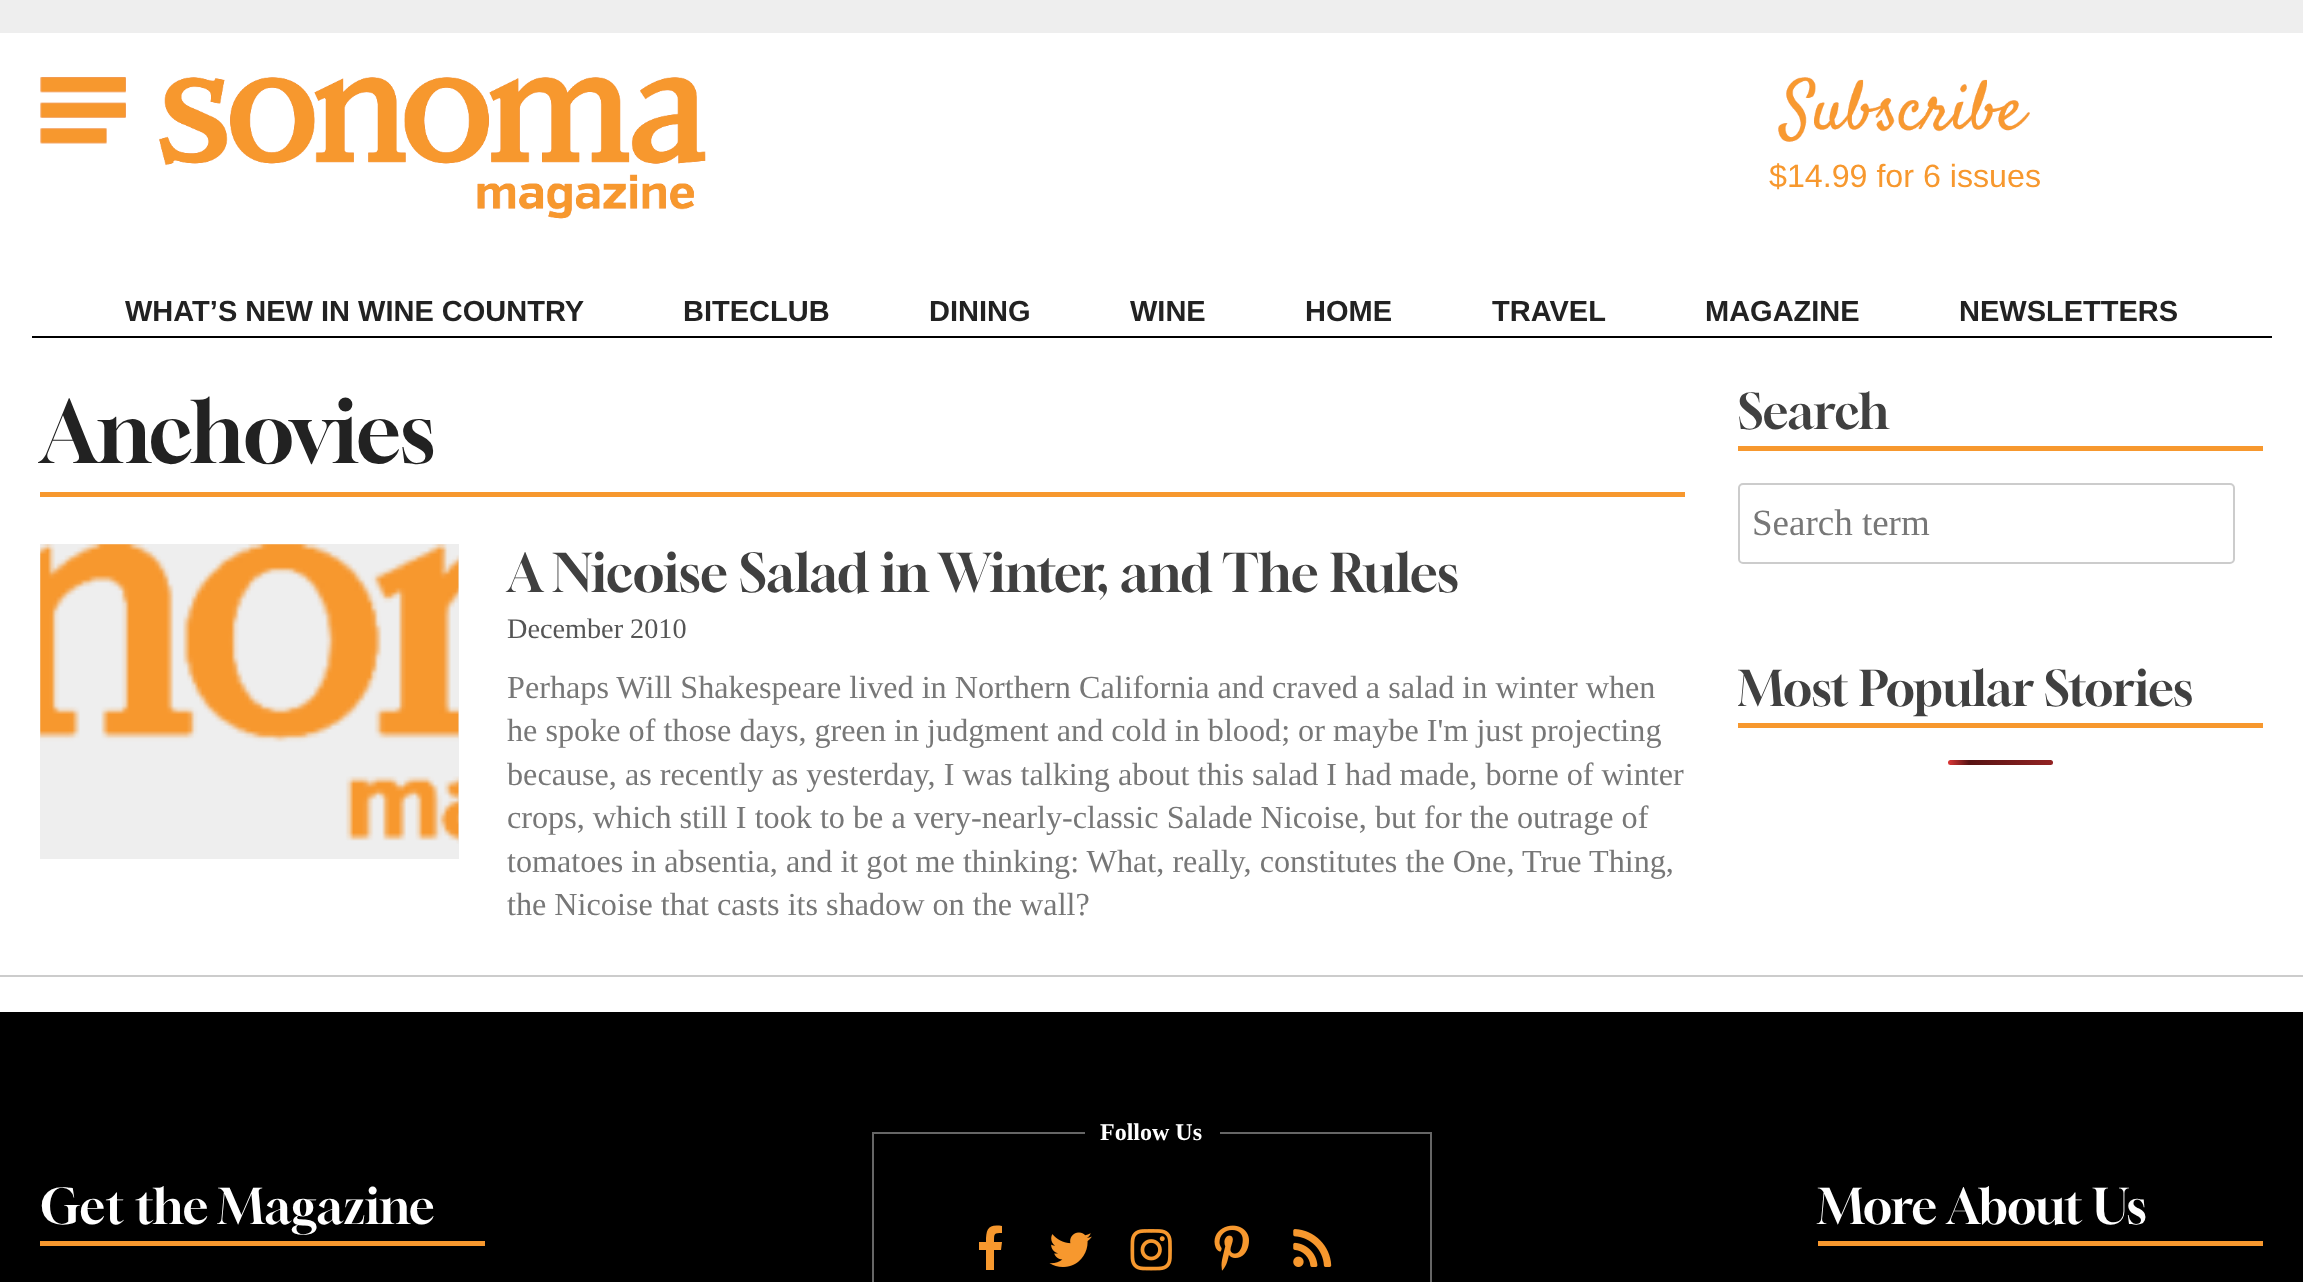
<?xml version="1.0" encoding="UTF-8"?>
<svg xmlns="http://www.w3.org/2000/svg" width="2303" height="1282">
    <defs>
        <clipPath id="clip1"><rect x="1738" y="338" width="525" height="625"/></clipPath>
        <linearGradient id="g1" gradientUnits="userSpaceOnUse" x1="1948" y1="762" x2="2158" y2="762"><stop offset="0" stop-color="#DD3737"/><stop offset="0.1" stop-color="#571313"/><stop offset="1" stop-color="#DD3737"/></linearGradient>
    </defs>
    <rect width="100%" height="100%" fill="#FFFFFF"/>
    <rect x="0" y="0" width="2303" height="33" fill="#EEEEEE"/>
    <image x="40" y="77" width="86" height="67" href="img_01.png"/>
    <image x="159" y="77" width="547" height="142" href="img_02.png"/>
    <image x="1778" y="77" width="252" height="65" href="img_03.png"/>
    <text x="1769" y="187" font-family="Liberation Sans" font-size="32.2" fill="#F7982E">$14.99 for 6 issues</text>
    <rect x="32" y="336" width="2240" height="2" fill="#000000"/>
    <text x="125" y="321" font-family="Liberation Sans" font-size="29" font-weight="700" fill="#222222">WHAT’S NEW IN WINE COUNTRY</text>
    <text x="683" y="321" font-family="Liberation Sans" font-size="29" font-weight="700" fill="#222222">BITECLUB</text>
    <text x="929" y="321" font-family="Liberation Sans" font-size="29" font-weight="700" fill="#222222">DINING</text>
    <text x="1130" y="321" font-family="Liberation Sans" font-size="29" font-weight="700" fill="#222222">WINE</text>
    <text x="1305" y="321" font-family="Liberation Sans" font-size="29" font-weight="700" fill="#222222">HOME</text>
    <text x="1492" y="321" font-family="Liberation Sans" font-size="29" font-weight="700" fill="#222222">TRAVEL</text>
    <text x="1705" y="321" font-family="Liberation Sans" font-size="29" font-weight="700" fill="#222222">MAGAZINE</text>
    <text x="1959" y="321" font-family="Liberation Sans" font-size="29" font-weight="700" fill="#222222">NEWSLETTERS</text>
    <rect x="40" y="492" width="1645" height="5" fill="#F7982E"/>
    <text x="40" y="463" font-family="Gloock" font-size="84.5" fill="#222222">Anchovies</text>
    <rect x="40" y="544" width="419" height="315" fill="#EEEEEE"/>
    <image x="40" y="544" width="419" height="300" href="img_04.png"/>
    <text x="507" y="592" font-family="Gloock" font-size="52.3" fill="#404040">A Nicoise Salad in Winter, and The Rules</text>
    <text x="507" y="638" font-family="Liberation Serif" font-size="28.25" fill="#555555">December 2010</text>
    <text font-family="Liberation Serif" font-size="32.2" fill="#777777">
        <tspan x="507" y="698">Perhaps Will Shakespeare lived in Northern California and craved a salad in winter when</tspan>
        <tspan x="507" y="741">he spoke of those days, green in judgment and cold in blood; or maybe I'm just projecting</tspan>
        <tspan x="507" y="785">because, as recently as yesterday, I was talking about this salad I had made, borne of winter</tspan>
        <tspan x="507" y="828">crops, which still I took to be a very-nearly-classic Salade Nicoise, but for the outrage of</tspan>
        <tspan x="507" y="872">tomatoes in absentia, and it got me thinking: What, really, constitutes the One, True Thing,</tspan>
        <tspan x="507" y="915">the Nicoise that casts its shadow on the wall?</tspan>
    </text>
    <rect x="1738" y="446" width="525" height="5" fill="#F7982E"/>
    <text x="1738" y="429" font-family="Gloock" font-size="48.25" fill="#404040">Search</text>
    <rect x="1739" y="484" width="495" height="79" rx="4" fill="none" stroke="#CCCCCC" stroke-width="2"/>
    <text x="1752" y="535" font-family="Liberation Serif" font-size="37" fill="#777777">Search term</text>
    <rect x="1738" y="723" width="525" height="5" fill="#F7982E"/>
    <g clip-path="url(#clip1)">
        <text x="1738" y="706" font-family="Gloock" font-size="48.25" fill="#404040">Most Popular Stories</text>
    </g>
    <rect x="1948" y="760" width="105" height="5" rx="2.5" fill="url(#g1)"/>
    <rect x="0" y="975" width="2303" height="2" fill="#CCCCCC"/>
    <rect x="0" y="1012" width="2303" height="270" fill="#000000"/>
    <rect x="873" y="1133" width="558" height="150" fill="none" stroke="#666666" stroke-width="2"/>
    <rect x="1085" y="1132" width="135" height="2" fill="#000000"/>
    <text x="1100" y="1140" font-family="Liberation Serif" font-size="24" font-weight="700" fill="#FFFFFF">Follow Us</text>
    <path d="M 1002 1226 V 1233 C 994 1233 994 1233 994 1242 H 1002 L 1001 1250 H 994 V 1270 H 986 V 1250 H 979 V 1242 H 986 C 986 1229 988 1224 1002 1226 Z" fill="#F7982E"/>
    <image x="1049" y="1232" width="43" height="35" href="img_05.png"/>
    <image x="1130" y="1229" width="42" height="42" href="img_06.png"/>
    <image x="1214" y="1225" width="35" height="46" href="img_07.png"/>
    <image x="1293" y="1229" width="39" height="38" href="img_08.png"/>
    <rect x="40" y="1241" width="445" height="5" fill="#F7982E"/>
    <text x="40" y="1224" font-family="Gloock" font-size="48.25" fill="#FFFFFF">Get the Magazine</text>
    <rect x="1818" y="1241" width="445" height="5" fill="#F7982E"/>
    <text x="1818" y="1224" font-family="Gloock" font-size="48.25" fill="#FFFFFF">More About Us</text>
</svg>
